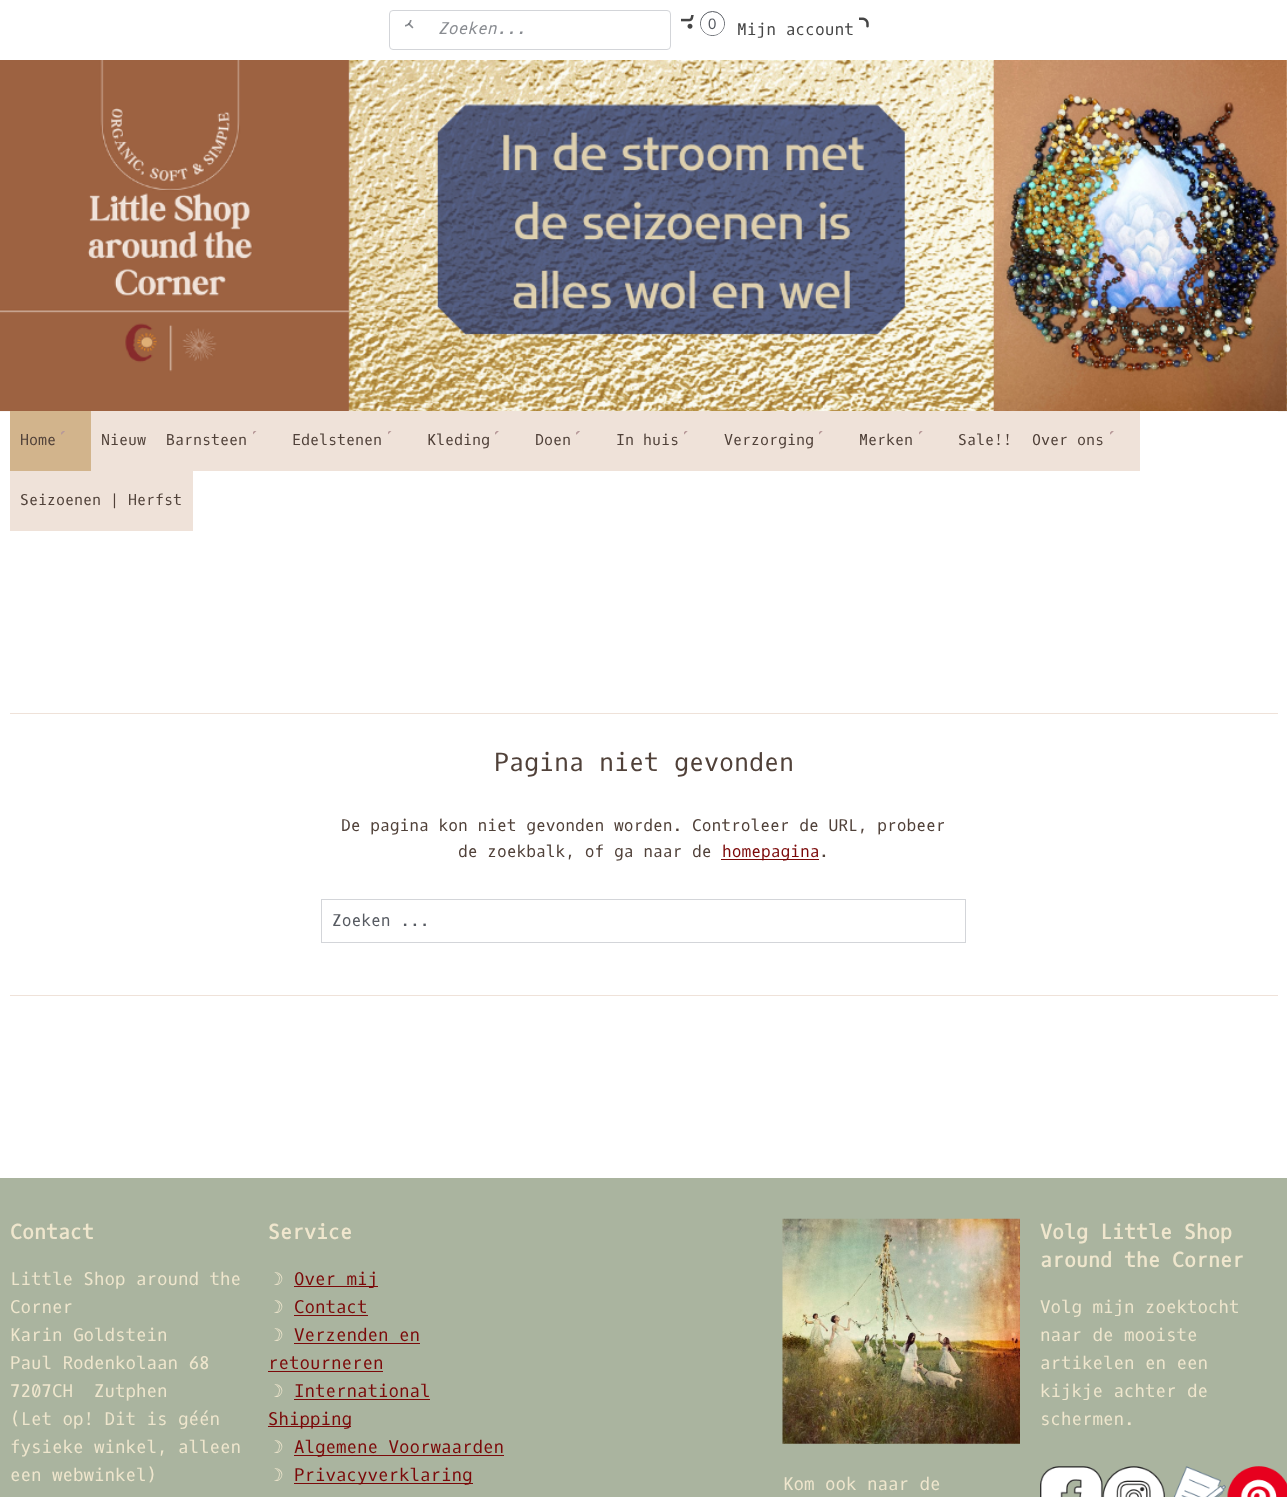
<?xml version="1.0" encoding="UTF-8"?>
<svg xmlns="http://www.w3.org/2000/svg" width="1287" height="1497">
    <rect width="100%" height="100%" fill="#FFFFFF"/>
    <rect x="389.5" y="10.5" width="281" height="39" rx="3.5" fill="none" stroke="#D3D5D9"/>
    <image x="405" y="20" width="9" height="9" href="img_01.png"/>
    <text x="438" y="34" font-family="Oxygen Mono" font-size="16.25" font-style="italic" fill="#898C91">Zoeken...</text>
    <image x="681" y="15" width="13" height="14" href="img_02.png"/>
    <circle cx="712.5" cy="23.5" r="12" fill="none" stroke="#575B62"/>
    <rect x="701" y="13" width="23" height="22" rx="11" fill="#FFFFFF"/>
    <text x="708" y="29" font-family="Liberation Sans" font-size="15" fill="#575B62">0</text>
    <text x="737" y="35" font-family="Oxygen Mono" font-size="16.25" fill="#454545">Mijn account</text>
    <image x="859" y="17" width="10" height="11" href="img_03.png"/>
    <image x="0" y="60" width="1287" height="352" href="img_04.png"/>
    <rect x="193" y="411" width="1085" height="1" fill="#FFFFFF"/>
    <rect x="10" y="411" width="81" height="60" fill="#D2B48C"/>
    <image x="61" y="431" width="4" height="4" href="img_05.png"/>
    <text x="20" y="445" font-family="Oxygen Mono" font-size="15" fill="#504139">Home</text>
    <rect x="91" y="411" width="758" height="60" fill="#EFE2D9"/>
    <text x="101" y="445" font-family="Oxygen Mono" font-size="15" fill="#504139">Nieuw</text>
    <text x="166" y="445" font-family="Oxygen Mono" font-size="15" fill="#504139">Barnsteen</text>
    <image x="253" y="431" width="4" height="4" href="img_06.png"/>
    <text x="292" y="445" font-family="Oxygen Mono" font-size="15" fill="#504139">Edelstenen</text>
    <image x="388" y="431" width="4" height="4" href="img_06.png"/>
    <text x="427" y="445" font-family="Oxygen Mono" font-size="15" fill="#504139">Kleding</text>
    <image x="495" y="431" width="4" height="4" href="img_07.png"/>
    <image x="576" y="431" width="4" height="4" href="img_08.png"/>
    <text x="535" y="445" font-family="Oxygen Mono" font-size="15" fill="#504139">Doen</text>
    <text x="616" y="445" font-family="Oxygen Mono" font-size="15" fill="#504139">In huis</text>
    <image x="684" y="431" width="4" height="4" href="img_09.png"/>
    <text x="724" y="445" font-family="Oxygen Mono" font-size="15" fill="#504139">Verzorging</text>
    <image x="819" y="431" width="4" height="4" href="img_09.png"/>
    <rect x="849" y="411" width="291" height="60" fill="#EFE2D9"/>
    <text x="859" y="445" font-family="Oxygen Mono" font-size="15" fill="#504139">Merken</text>
    <image x="919" y="431" width="4" height="4" href="img_09.png"/>
    <text x="958" y="445" font-family="Oxygen Mono" font-size="15" fill="#504139">Sale!!</text>
    <text x="1032" y="445" font-family="Oxygen Mono" font-size="15" fill="#504139">Over ons</text>
    <image x="1110" y="431" width="4" height="4" href="img_07.png"/>
    <rect x="10" y="471" width="183" height="60" fill="#EFE2D9"/>
    <text x="20" y="505" font-family="Oxygen Mono" font-size="15" fill="#504139">Seizoenen | Herfst</text>
    <rect x="10" y="713" width="1268" height="1" fill="#EFE2D9"/>
    <rect x="10" y="995" width="1268" height="1" fill="#EFE2D9"/>
    <text x="494" y="771" font-family="Oxygen Mono" font-size="25" fill="#504139">Pagina niet gevonden</text>
    <text x="341" y="831" font-family="Oxygen Mono" font-size="16.25" fill="#504139">De pagina kon niet gevonden worden. Controleer de URL, probeer</text>
    <text x="458" y="857" font-family="Oxygen Mono" font-size="16.25" fill="#504139">de zoekbalk, of ga naar de</text>
    <rect x="721" y="859" width="98" height="1" fill="#7B0909"/>
    <text x="722" y="857" font-family="Oxygen Mono" font-size="16.25" fill="#7B0909">homepagina</text>
    <text x="819" y="857" font-family="Oxygen Mono" font-size="16.25" fill="#504139">.</text>
    <rect x="321.5" y="899.5" width="644" height="43" fill="none" stroke="#D3D5D9"/>
    <text x="332" y="926" font-family="Oxygen Mono" font-size="16.25" fill="#575B62">Zoeken ...</text>
    <rect x="0" y="1178" width="1287" height="319" fill="#AAB49F"/>
    <text x="10" y="1239" font-family="Oxygen Mono" font-size="20" font-weight="700" fill="#EFE6CD">Contact</text>
    <text font-family="Oxygen Mono" font-size="17.5" fill="#EFE6CD" xml:space="preserve"><tspan x="10" y="1285">Little Shop around the</tspan><tspan x="10" y="1313">Corner</tspan><tspan x="10" y="1341">Karin Goldstein</tspan><tspan x="10" y="1369">Paul Rodenkolaan 68</tspan><tspan x="10" y="1397">7207CH  Zutphen</tspan><tspan x="10" y="1425">(Let op! Dit is géén</tspan><tspan x="10" y="1453">fysieke winkel, alleen</tspan><tspan x="10" y="1481">een webwinkel)</tspan></text>
    <text x="268" y="1239" font-family="Oxygen Mono" font-size="20" font-weight="700" fill="#EFE6CD">Service</text>
    <text x="268" y="1285" font-family="DejaVu Sans" font-size="17.5" fill="#EFE6CD">☽</text>
    <rect x="294" y="1286" width="84" height="1" fill="#7B0909"/>
    <text x="294" y="1285" font-family="Oxygen Mono" font-size="17.5" fill="#7B0909">Over mij</text>
    <text x="268" y="1313" font-family="DejaVu Sans" font-size="17.5" fill="#EFE6CD">☽</text>
    <text x="294" y="1313" font-family="Oxygen Mono" font-size="17.5" fill="#7B0909">Contact</text>
    <rect x="294" y="1315" width="74" height="1" fill="#7B0909"/>
    <text x="268" y="1341" font-family="DejaVu Sans" font-size="17.5" fill="#EFE6CD">☽</text>
    <text x="294" y="1341" font-family="Oxygen Mono" font-size="17.5" fill="#7B0909">Verzenden en</text>
    <rect x="294" y="1343" width="126" height="1" fill="#7B0909"/>
    <text x="268" y="1369" font-family="Oxygen Mono" font-size="17.5" fill="#7B0909">retourneren</text>
    <rect x="268" y="1371" width="115" height="1" fill="#7B0909"/>
    <text x="268" y="1397" font-family="DejaVu Sans" font-size="17.5" fill="#EFE6CD">☽</text>
    <text x="294" y="1397" font-family="Oxygen Mono" font-size="17.5" fill="#7B0909">International</text>
    <rect x="294" y="1399" width="136" height="1" fill="#7B0909"/>
    <rect x="268" y="1426" width="83" height="1" fill="#7B0909"/>
    <text x="268" y="1425" font-family="Oxygen Mono" font-size="17.5" fill="#7B0909">Shipping</text>
    <text x="268" y="1453" font-family="DejaVu Sans" font-size="17.5" fill="#EFE6CD">☽</text>
    <rect x="294" y="1455" width="210" height="1" fill="#7B0909"/>
    <text x="294" y="1453" font-family="Oxygen Mono" font-size="17.5" fill="#7B0909">Algemene Voorwaarden</text>
    <text x="268" y="1481" font-family="DejaVu Sans" font-size="17.5" fill="#EFE6CD">☽</text>
    <rect x="294" y="1483" width="179" height="1" fill="#7B0909"/>
    <text x="294" y="1481" font-family="Oxygen Mono" font-size="17.5" fill="#7B0909">Privacyverklaring</text>
    <image x="782" y="1218" width="238" height="226" href="img_10.png"/>
    <text x="783" y="1490" font-family="Oxygen Mono" font-size="17.5" fill="#EFE6CD">Kom ook naar de</text>
    <text font-family="Oxygen Mono" font-size="20" font-weight="700" fill="#EFE6CD">
        <tspan x="1040" y="1239">Volg Little Shop</tspan>
        <tspan x="1040" y="1267">around the Corner</tspan>
    </text>
    <text font-family="Oxygen Mono" font-size="17.5" fill="#EFE6CD">
        <tspan x="1040" y="1313">Volg mijn zoektocht</tspan>
        <tspan x="1040" y="1341">naar de mooiste</tspan>
        <tspan x="1040" y="1369">artikelen en een</tspan>
        <tspan x="1040" y="1397">kijkje achter de</tspan>
        <tspan x="1040" y="1425">schermen.</tspan>
    </text>
    <image x="1040" y="1466" width="63" height="31" href="img_11.png"/>
    <image x="1102" y="1466" width="63" height="31" href="img_12.png"/>
    <image x="1173" y="1466" width="53" height="31" href="img_13.png"/>
    <image x="1227" y="1466" width="60" height="31" href="img_14.png"/>
</svg>
